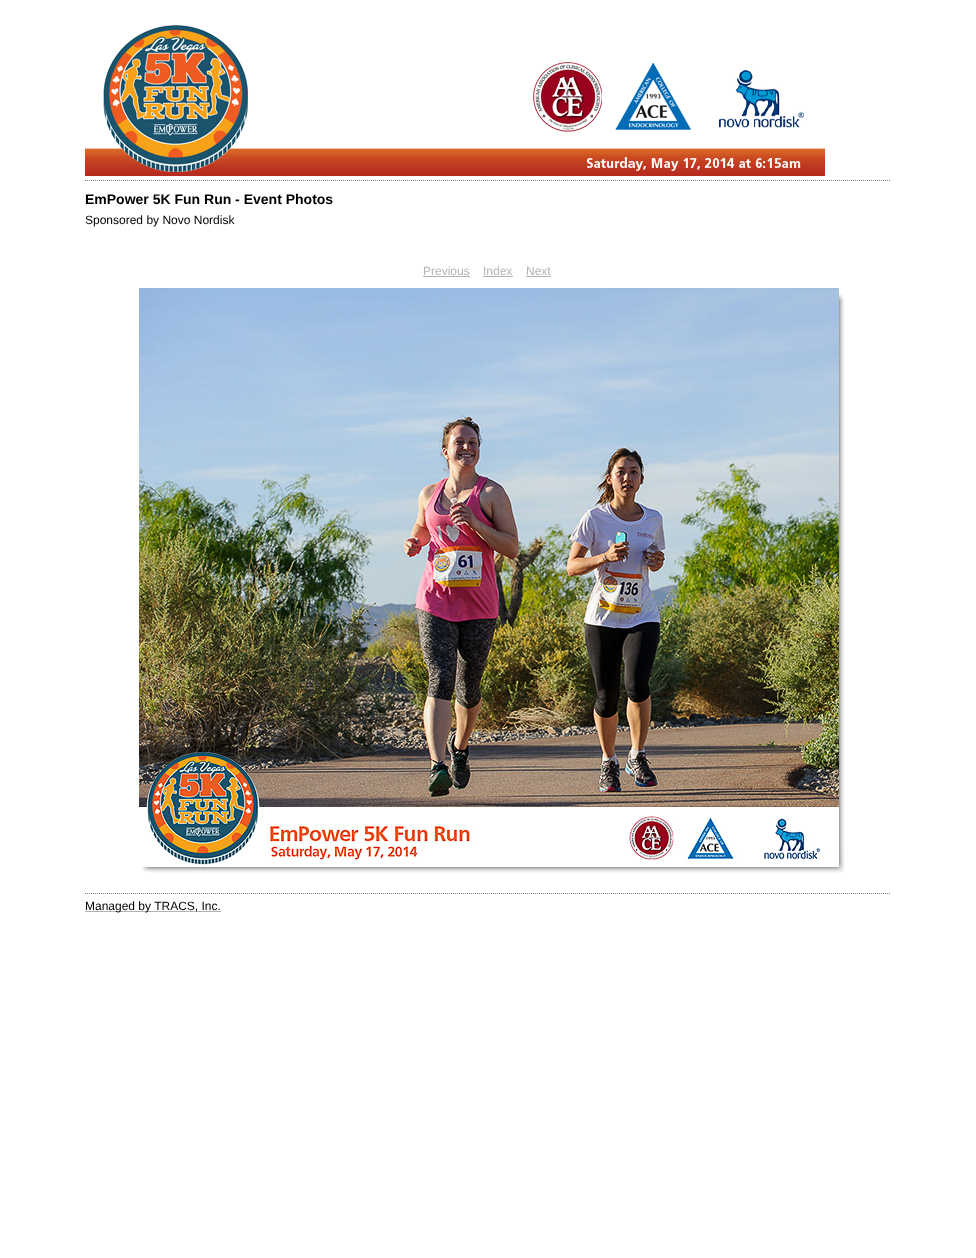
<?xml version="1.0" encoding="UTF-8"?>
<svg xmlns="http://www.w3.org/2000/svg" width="976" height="1258">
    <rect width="100%" height="100%" fill="#FFFFFF"/>
    <image x="85" y="25" width="740" height="151" href="img_01.png"/>
    <path d="M 85 180.5 H 891" fill="none" stroke="#7F7F7F" stroke-dasharray="1 1"/>
    <text x="85" y="204" font-family="Liberation Sans" font-size="14" font-weight="700" fill="#000000">EmPower 5K Fun Run - Event Photos</text>
    <text x="85" y="224" font-family="Liberation Sans" font-size="12" fill="#000000">Sponsored by Novo Nordisk</text>
    <path d="M 85 893.5 H 891" fill="none" stroke="#7F7F7F" stroke-dasharray="1 1"/>
    <text x="423" y="275" font-family="Liberation Sans" font-size="12" fill="#B3B3B3">Previous</text>
    <rect x="423" y="276" width="47" height="1" fill="#B3B3B3"/>
    <text x="483" y="275" font-family="Liberation Sans" font-size="12" fill="#B3B3B3">Index</text>
    <rect x="483" y="276" width="30" height="1" fill="#B3B3B3"/>
    <text x="526" y="275" font-family="Liberation Sans" font-size="12" fill="#B3B3B3">Next</text>
    <rect x="526" y="276" width="25" height="1" fill="#B3B3B3"/>
    <image x="149" y="301" width="696" height="572" href="img_02.png"/>
    <image x="139" y="288" width="700" height="579" href="img_03.png"/>
    <image x="839" y="293" width="5" height="8" href="img_04.png"/>
    <image x="141" y="867" width="8" height="5" href="img_05.png"/>
    <rect x="85" y="911" width="136" height="1" fill="#B3B3B3"/>
    <text x="85" y="910" font-family="Liberation Sans" font-size="12" fill="#000000">Managed by TRACS, Inc.</text>
</svg>
